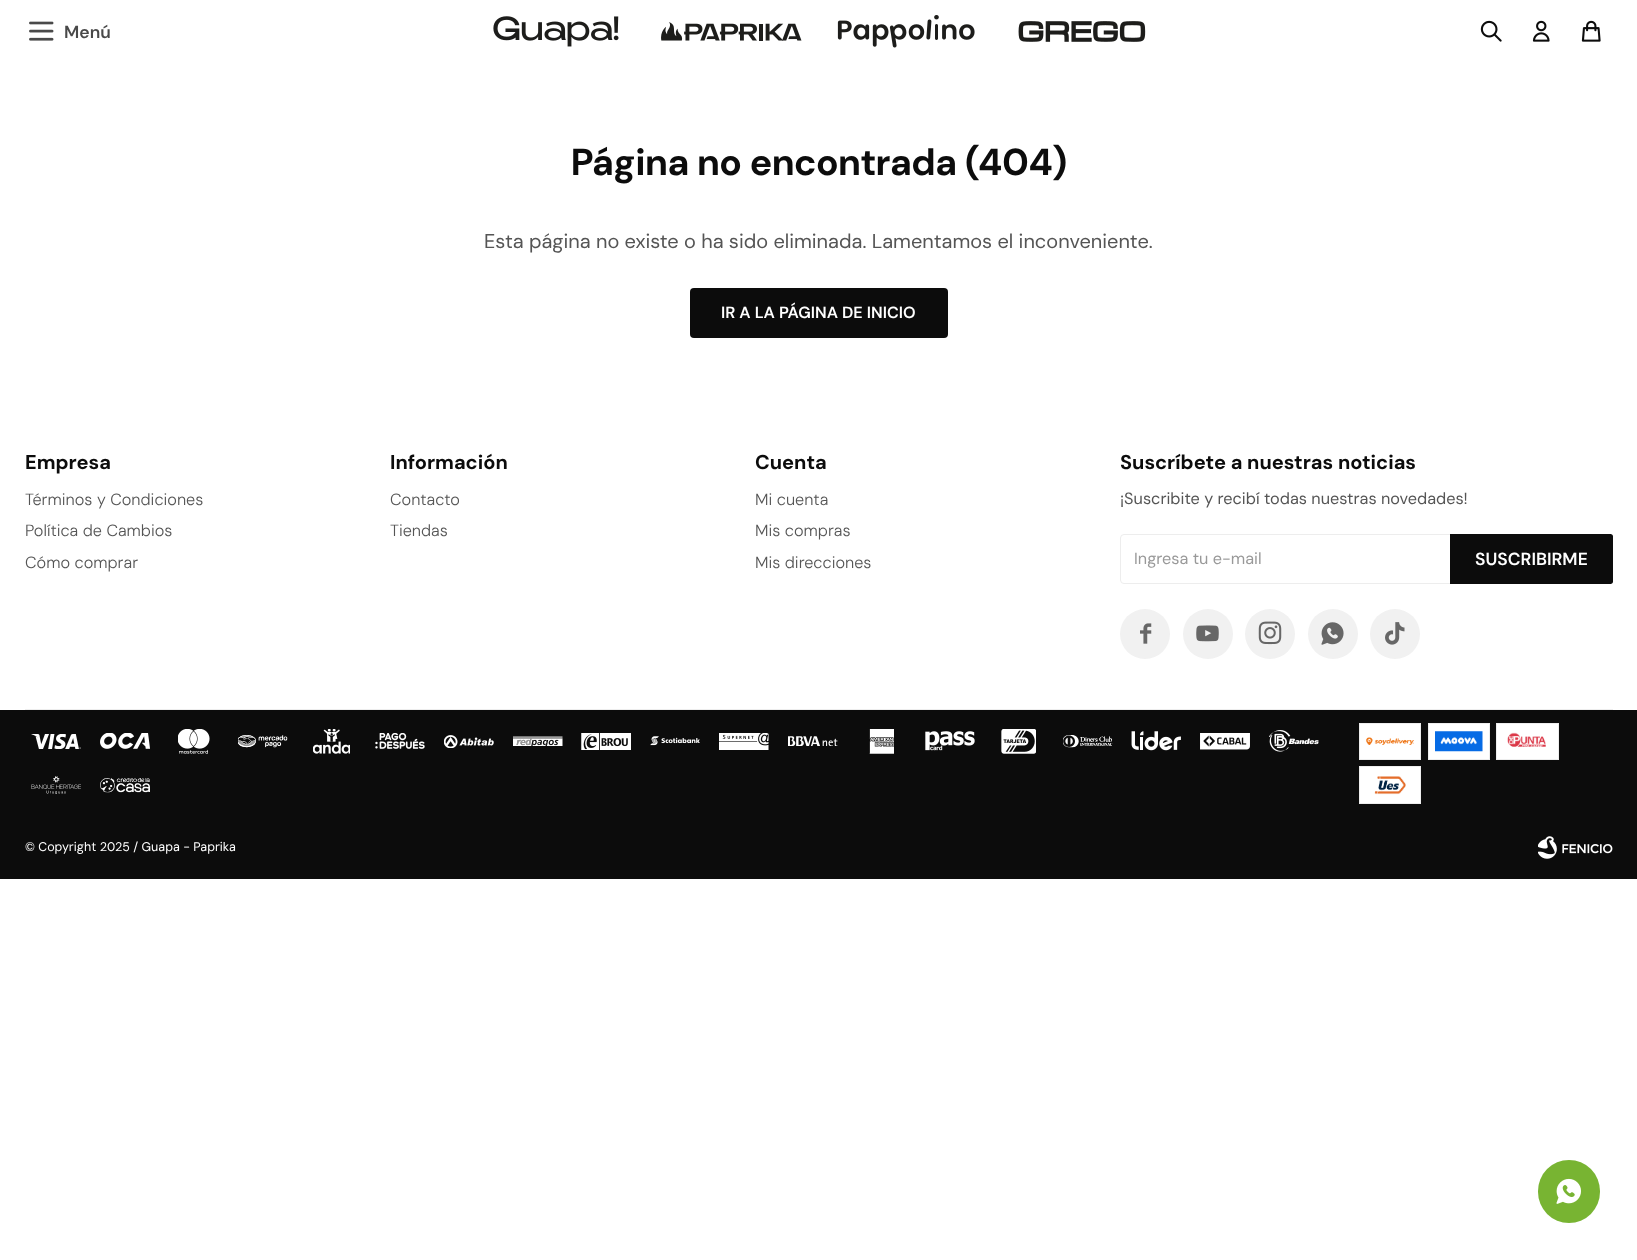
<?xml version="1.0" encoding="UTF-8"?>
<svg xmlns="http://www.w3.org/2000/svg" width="1637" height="1260">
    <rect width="100%" height="100%" fill="#FFFFFF"/>
    <image x="29" y="21" width="25" height="20" href="img_01.png"/>
    <text x="64" y="38" font-family="'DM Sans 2'" font-size="17.5" font-weight="600" fill="#494949">Menú</text>
    <image x="493" y="16" width="126" height="31" href="img_02.png"/>
    <image x="661" y="22" width="141" height="19" href="img_03.png"/>
    <image x="837" y="15" width="138" height="33" href="img_04.png"/>
    <image x="1018" y="21" width="128" height="21" href="img_05.png"/>
    <image x="1480" y="20" width="22" height="22" href="img_06.png"/>
    <image x="1532" y="20" width="18" height="22" href="img_07.png"/>
    <image x="1581" y="20" width="20" height="22" href="img_08.png"/>
    <text x="571" y="175" font-family="DM Sans" font-size="37.5" font-weight="700" fill="#0C0C0C">Página no encontrada (404)</text>
    <text x="484" y="248" font-family="DM Sans" font-size="20" fill="#555555">Esta página no existe o ha sido eliminada. Lamentamos el inconveniente.</text>
    <rect x="690" y="288" width="258" height="50" rx="4" fill="#0C0C0C"/>
    <text x="721" y="318" font-family="DM Sans" font-size="16.25" font-weight="600" fill="#FFFFFF">IR A LA PÁGINA DE INICIO</text>
    <text x="25" y="469" font-family="'DM Sans 2'" font-size="20" font-weight="700" fill="#0C0C0C">Empresa</text>
    <text font-family="DM Sans" font-size="16.25" font-weight="300" fill="#555555">
        <tspan x="25" y="505">Términos y Condiciones</tspan>
        <tspan x="25" y="536">Política de Cambios</tspan>
        <tspan x="25" y="568">Cómo comprar</tspan>
    </text>
    <text x="390" y="469" font-family="'DM Sans 2'" font-size="20" font-weight="700" fill="#0C0C0C">Información</text>
    <text font-family="DM Sans" font-size="16.25" font-weight="300" fill="#555555">
        <tspan x="390" y="505">Contacto</tspan>
        <tspan x="390" y="536">Tiendas</tspan>
    </text>
    <text x="755" y="469" font-family="'DM Sans 2'" font-size="20" font-weight="700" fill="#0C0C0C">Cuenta</text>
    <text font-family="DM Sans" font-size="16.25" font-weight="300" fill="#555555">
        <tspan x="755" y="505">Mi cuenta</tspan>
        <tspan x="755" y="536">Mis compras</tspan>
        <tspan x="755" y="568">Mis direcciones</tspan>
    </text>
    <text x="1120" y="469" font-family="'DM Sans 2'" font-size="20" font-weight="700" fill="#0C0C0C">Suscríbete a nuestras noticias</text>
    <text x="1120" y="504" font-family="'DM Sans 2'" font-size="16.25" fill="#555555">¡Suscribite y recibí todas nuestras novedades!</text>
    <rect x="1120.5" y="534.5" width="492" height="49" rx="3.5" fill="none" stroke="#EDEDED"/>
    <text x="1134" y="564" font-family="'DM Sans 2'" font-size="16.25" fill="#999999">Ingresa tu e-mail</text>
    <path d="M 1450 534 H 1610.5 C 1612 534 1613 535 1613 536.5 V 581.5 C 1613 583 1612 584 1610.5 584 H 1450 Z" fill="#0C0C0C"/>
    <text x="1475" y="565" font-family="'DM Sans 2'" font-size="17.5" font-weight="600" fill="#FFFFFF">SUSCRIBIRME</text>
    <circle cx="1145" cy="634" r="25" fill="#F1F1F1"/>
    <image x="1140" y="623" width="12" height="21" href="img_09.png"/>
    <circle cx="1208" cy="634" r="25" fill="#F1F1F1"/>
    <image x="1196" y="625" width="23" height="17" href="img_10.png"/>
    <circle cx="1270" cy="634" r="25" fill="#F1F1F1"/>
    <image x="1258" y="621" width="24" height="24" href="img_11.png"/>
    <circle cx="1333" cy="634" r="25" fill="#F1F1F1"/>
    <image x="1321" y="622" width="23" height="23" href="img_12.png"/>
    <circle cx="1395" cy="634" r="25" fill="#F1F1F1"/>
    <image x="1385" y="622" width="20" height="23" href="img_13.png"/>
    <rect x="25" y="709" width="1588" height="1" fill="#EDEDED"/>
    <rect x="0" y="710" width="1637" height="169" fill="#0C0C0C"/>
    <image x="31" y="734" width="50" height="15" href="img_14.png"/>
    <image x="100" y="733" width="50" height="16" href="img_15.png"/>
    <image x="178" y="729" width="32" height="25" href="img_16.png"/>
    <image x="238" y="735" width="50" height="13" href="img_17.png"/>
    <image x="313" y="729" width="37" height="25" href="img_18.png"/>
    <image x="375" y="733" width="50" height="16" href="img_19.png"/>
    <image x="444" y="735" width="50" height="13" href="img_20.png"/>
    <image x="513" y="736" width="50" height="10" href="img_21.png"/>
    <image x="581" y="733" width="50" height="17" href="img_22.png"/>
    <image x="650" y="736" width="50" height="10" href="img_23.png"/>
    <image x="719" y="733" width="50" height="17" href="img_24.png"/>
    <image x="788" y="736" width="50" height="10" href="img_25.png"/>
    <image x="869" y="729" width="25" height="25" href="img_26.png"/>
    <image x="925" y="731" width="50" height="20" href="img_27.png"/>
    <image x="1001" y="729" width="35" height="25" href="img_28.png"/>
    <image x="1063" y="735" width="50" height="13" href="img_29.png"/>
    <image x="1131" y="731" width="50" height="20" href="img_30.png"/>
    <image x="1200" y="733" width="50" height="17" href="img_31.png"/>
    <image x="1269" y="730" width="50" height="22" href="img_32.png"/>
    <image x="31" y="776" width="50" height="18" href="img_33.png"/>
    <image x="100" y="778" width="50" height="15" href="img_34.png"/>
    <rect x="1359.5" y="723.5" width="61" height="36" fill="#FFFFFF" stroke="#EDEDED"/>
    <image x="1366" y="737" width="48" height="8" href="img_35.png"/>
    <rect x="1428.5" y="723.5" width="61" height="36" fill="#FFFFFF" stroke="#EDEDED"/>
    <image x="1435" y="731" width="48" height="21" href="img_36.png"/>
    <rect x="1496.5" y="723.5" width="62" height="36" fill="#FFFFFF" stroke="#EDEDED"/>
    <image x="1507" y="732" width="39" height="15" href="img_37.png"/>
    <rect x="1359.5" y="766.5" width="61" height="37" fill="#FFFFFF" stroke="#EDEDED"/>
    <image x="1374" y="776" width="32" height="19" href="img_38.png"/>
    <text x="25" y="851" font-family="'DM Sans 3'" font-size="12.5" fill="#FFFFFF">© Copyright 2025 / Guapa - Paprika</text>
    <image x="1538" y="836" width="75" height="23" href="img_39.png"/>
    <rect x="1538" y="1160" width="62" height="63" rx="31" fill="#78B432"/>
    <image x="1556" y="1178" width="25" height="26" href="img_40.png"/>
</svg>
